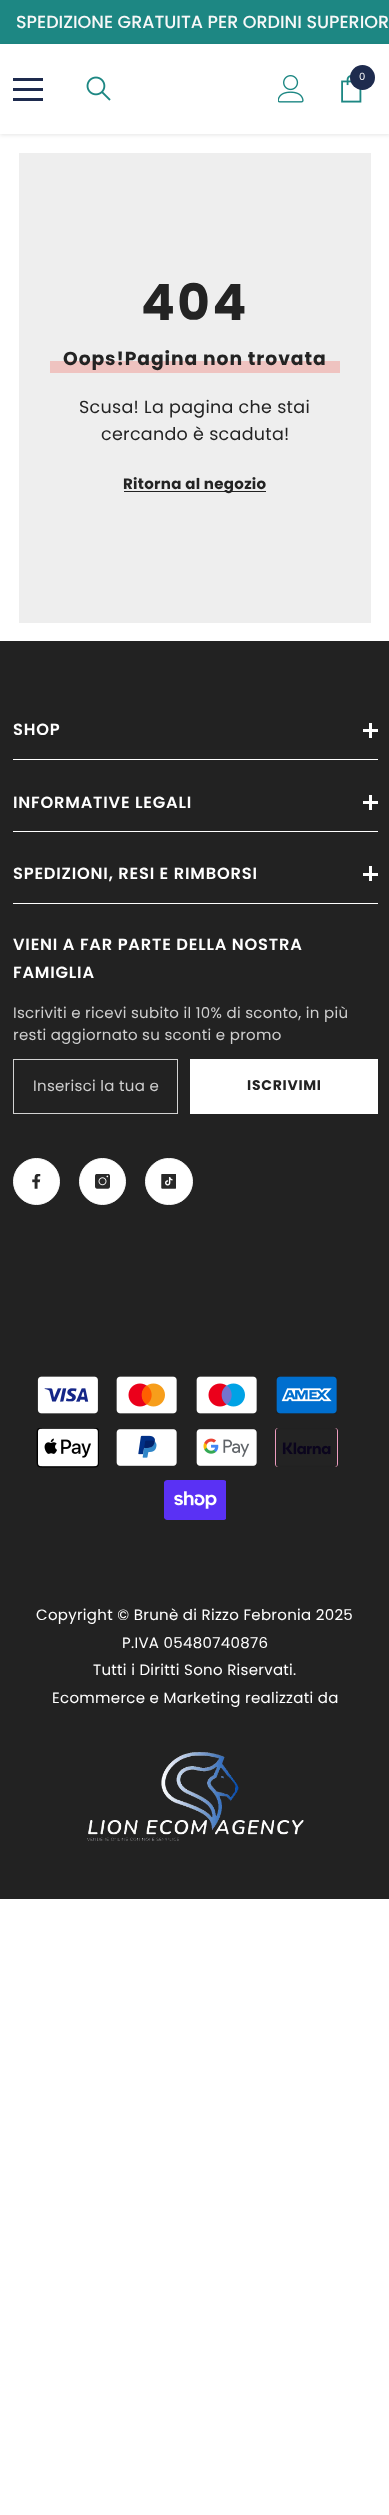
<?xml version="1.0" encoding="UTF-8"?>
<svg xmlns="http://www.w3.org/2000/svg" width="389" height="2515">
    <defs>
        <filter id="blur1" x="-50%" y="-200%" width="200%" height="500%"><feGaussianBlur stdDeviation="2"/></filter>
    </defs>
    <rect width="100%" height="100%" fill="#FFFFFF"/>
    <rect x="0" y="0" width="389" height="44" fill="#1D8783"/>
    <text x="16" y="28" font-family="Poppins" font-size="17.5" font-weight="500" fill="#F8F8F8">SPEDIZIONE GRATUITA PER ORDINI SUPERIOR</text>
    <rect x="0" y="45" width="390" height="90" fill="#000000" fill-opacity="0.1" filter="url(#blur1)"/>
    <rect x="0" y="44" width="389" height="90" fill="#FFFFFF"/>
    <rect x="13" y="88" width="30" height="3" fill="#1E2B4E"/>
    <rect x="13" y="78" width="30" height="3" fill="#1E2B4E"/>
    <rect x="13" y="98" width="30" height="3" fill="#1E2B4E"/>
    <image x="86" y="76" width="25" height="25" href="img_01.png"/>
    <image x="278" y="75" width="26" height="28" href="img_02.png"/>
    <image x="341" y="75" width="21" height="28" href="img_03.png"/>
    <circle cx="362.5" cy="77.5" r="12.5" fill="#1E2B4E"/>
    <text x="359" y="80" font-family="Poppins" font-size="10" fill="#FFFFFF">0</text>
    <rect x="19" y="153" width="352" height="470" fill="#EEEEEE"/>
    <text x="141" y="320" font-family="Poppins" font-size="50" font-weight="700" letter-spacing="2.5" fill="#232323">404</text>
    <rect x="50" y="361" width="290" height="12" fill="#EFC3C0"/>
    <text x="63" y="365" font-family="Poppins" font-size="18.75" font-weight="700" letter-spacing="0.9" fill="#232323">Oops!Pagina non trovata</text>
    <text x="79" y="413" font-family="Poppins" font-size="17.5" letter-spacing="0.3" fill="#232323">Scusa! La pagina che stai</text>
    <text x="101" y="440" font-family="Poppins" font-size="17.5" letter-spacing="0.3" fill="#232323">cercando è scaduta!</text>
    <rect x="124" y="491" width="142" height="1" fill="#232323"/>
    <text x="123" y="489" font-family="Poppins" font-size="15" font-weight="700" letter-spacing="0.3" fill="#232323">Ritorna al negozio</text>
    <rect x="0" y="641" width="389" height="1258" fill="#222222"/>
    <image x="37" y="1376" width="61" height="38" href="img_04.png"/>
    <image x="116" y="1376" width="61" height="38" href="img_05.png"/>
    <image x="196" y="1376" width="61" height="38" href="img_06.png"/>
    <image x="276" y="1376" width="61" height="38" href="img_07.png"/>
    <image x="36" y="1428" width="63" height="40" href="img_08.png"/>
    <image x="116" y="1429" width="61" height="37" href="img_09.png"/>
    <image x="196" y="1429" width="61" height="37" href="img_10.png"/>
    <image x="275" y="1428" width="63" height="39" href="img_11.png"/>
    <image x="164" y="1480" width="62" height="40" href="img_12.png"/>
    <rect x="13" y="759" width="365" height="1" fill="#FFFFFF"/>
    <text x="13" y="735" font-family="Poppins" font-size="16.25" font-weight="600" letter-spacing="0.8" fill="#FFFFFF">SHOP</text>
    <rect x="369" y="723" width="3" height="15" fill="#FFFFFF"/>
    <rect x="363" y="729" width="15" height="3" fill="#FFFFFF"/>
    <rect x="13" y="831" width="365" height="1" fill="#FFFFFF"/>
    <text x="13" y="808" font-family="Poppins" font-size="16.25" font-weight="600" letter-spacing="0.8" fill="#FFFFFF">INFORMATIVE LEGALI</text>
    <rect x="369" y="795" width="3" height="15" fill="#FFFFFF"/>
    <rect x="363" y="801" width="15" height="3" fill="#FFFFFF"/>
    <rect x="13" y="903" width="365" height="1" fill="#FFFFFF"/>
    <text x="13" y="879" font-family="Poppins" font-size="16.25" font-weight="600" letter-spacing="0.8" fill="#FFFFFF">SPEDIZIONI, RESI E RIMBORSI</text>
    <rect x="369" y="866" width="3" height="15" fill="#FFFFFF"/>
    <rect x="363" y="873" width="15" height="3" fill="#FFFFFF"/>
    <text font-family="Poppins" font-size="16.25" font-weight="600" letter-spacing="0.8" fill="#FFFFFF">
        <tspan x="13" y="950">VIENI A FAR PARTE DELLA NOSTRA</tspan>
        <tspan x="13" y="978">FAMIGLIA</tspan>
    </text>
    <text font-family="Poppins" font-size="15" letter-spacing="0.3" fill="#CFCFCF">
        <tspan x="13" y="1018">Iscriviti e ricevi subito il 10% di sconto, in più</tspan>
        <tspan x="13" y="1040">resti aggiornato su sconti e promo</tspan>
    </text>
    <rect x="13.5" y="1059.5" width="164" height="54" fill="none" stroke="#D3D3D3"/>
    <text x="33" y="1091" font-family="Poppins" font-size="15" letter-spacing="0.3" fill="#CFCFCF">Inserisci la tua e</text>
    <rect x="190" y="1059" width="188" height="55" fill="#FFFFFF"/>
    <text x="247" y="1090" font-family="Poppins" font-size="14" font-weight="700" letter-spacing="0.75" fill="#232323">ISCRIVIMI</text>
    <circle cx="36.5" cy="1181.5" r="23" fill="#FFFFFF" stroke="#FFFFFF"/>
    <image x="32" y="1174" width="9" height="15" href="img_13.png"/>
    <circle cx="102.5" cy="1181.5" r="23" fill="#FFFFFF" stroke="#FFFFFF"/>
    <image x="95" y="1174" width="15" height="15" href="img_14.png"/>
    <rect x="145.5" y="1158.5" width="47" height="46" rx="23" fill="#FFFFFF" stroke="#FFFFFF"/>
    <image x="161" y="1174" width="15" height="15" href="img_15.png"/>
    <text x="36" y="1620" font-family="Poppins" font-size="15" letter-spacing="0.3" fill="#FFFFFF">Copyright © Brunè di Rizzo Febronia 2025</text>
    <text x="122" y="1648" font-family="Poppins" font-size="15" letter-spacing="0.3" fill="#FFFFFF">P.IVA 05480740876</text>
    <text x="93" y="1675" font-family="Poppins" font-size="15" letter-spacing="0.3" fill="#FFFFFF">Tutti i Diritti Sono Riservati.</text>
    <text x="52" y="1703" font-family="Poppins" font-size="15" letter-spacing="0.3" fill="#FFFFFF">Ecommerce e Marketing realizzati da</text>
    <image x="87" y="1752" width="217" height="89" href="img_16.png"/>
</svg>
